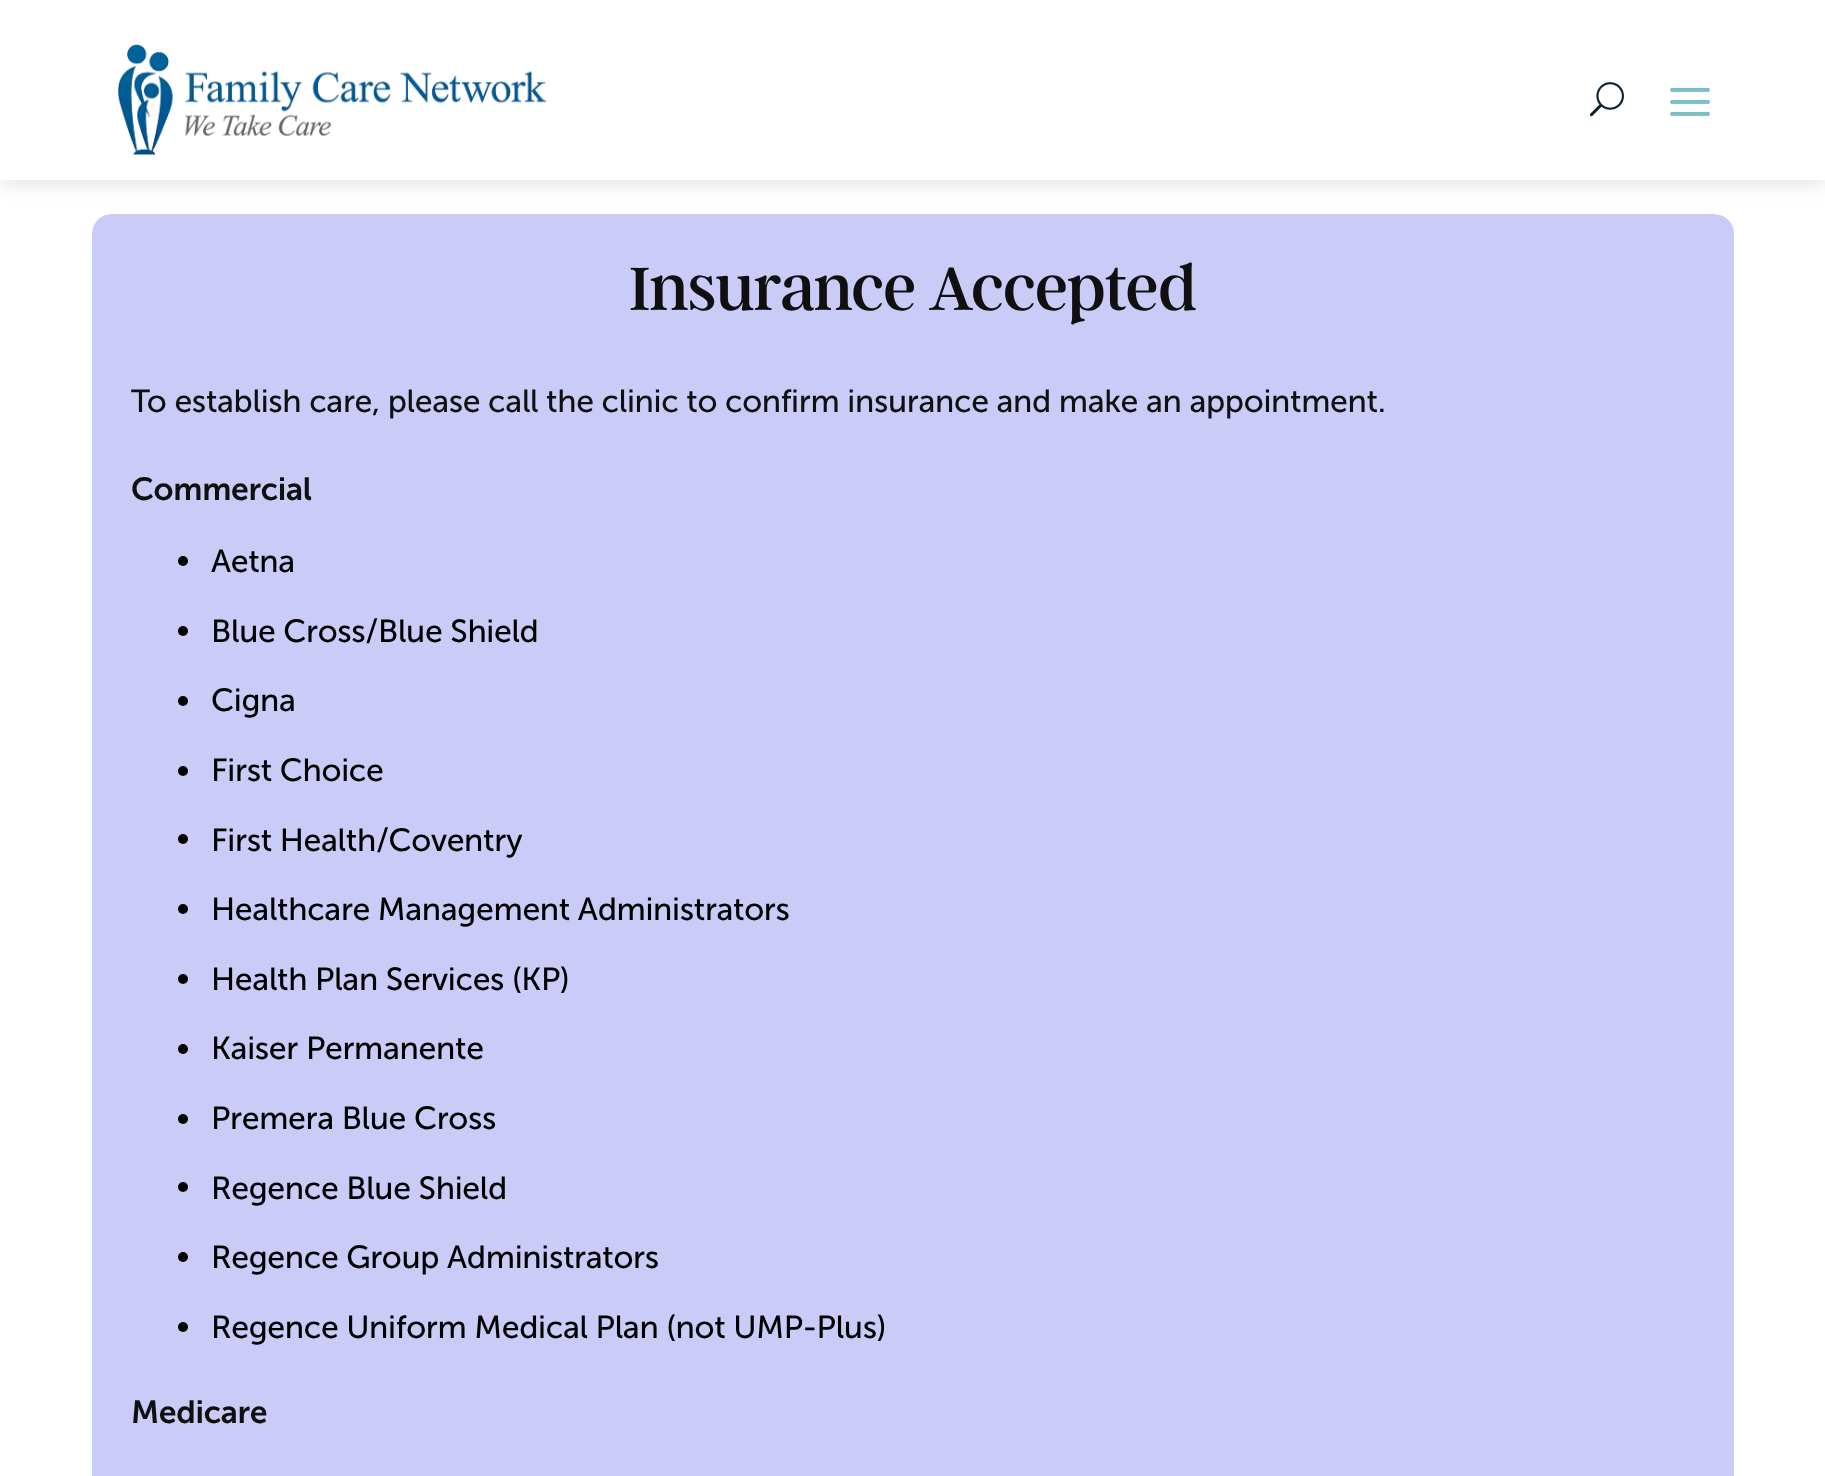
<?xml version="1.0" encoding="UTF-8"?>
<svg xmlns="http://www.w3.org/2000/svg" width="1825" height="1476">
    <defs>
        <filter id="blur1" x="-50%" y="-200%" width="200%" height="500%"><feGaussianBlur stdDeviation="10"/></filter>
    </defs>
    <rect width="100%" height="100%" fill="#FFFFFF"/>
    <rect x="92" y="214" width="1642" height="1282" rx="20" fill="#CBCBF7"/>
    <rect x="0" y="4" width="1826" height="180" fill="#000000" fill-opacity="0.11" filter="url(#blur1)"/>
    <rect x="0" y="0" width="1825" height="180" fill="#FFFFFF"/>
    <image x="117" y="44" width="430" height="112" href="img_01.png"/>
    <image x="1589" y="82" width="35" height="35" href="img_02.png"/>
    <image x="1670" y="87" width="40" height="29" href="img_03.png"/>
    <text x="629" y="310" font-family="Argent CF" font-size="68" letter-spacing="-0.7" fill="#101010">Insurance Accepted</text>
    <text x="131" y="412" font-family="'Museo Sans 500'" font-size="32" letter-spacing="-0.32" fill="#101010">To establish care, please call the clinic to confirm insurance and make an appointment.</text>
    <text x="131" y="500" font-family="'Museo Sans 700'" font-size="32" font-weight="600" letter-spacing="-0.32" fill="#101010">Commercial</text>
    <circle cx="183" cy="561" r="5" fill="#000000"/>
    <text x="211" y="572" font-family="'Museo Sans 500'" font-size="32" letter-spacing="-0.32" fill="#000000">Aetna</text>
    <circle cx="183" cy="631" r="5" fill="#000000"/>
    <text x="211" y="642" font-family="'Museo Sans 500'" font-size="32" letter-spacing="-0.32" fill="#000000">Blue Cross/Blue Shield</text>
    <circle cx="183" cy="701" r="5" fill="#000000"/>
    <text x="211" y="711" font-family="'Museo Sans 500'" font-size="32" letter-spacing="-0.32" fill="#000000">Cigna</text>
    <circle cx="183" cy="771" r="5" fill="#000000"/>
    <text x="211" y="781" font-family="'Museo Sans 500'" font-size="32" letter-spacing="-0.32" fill="#000000">First Choice</text>
    <circle cx="183" cy="839" r="5" fill="#000000"/>
    <text x="211" y="851" font-family="'Museo Sans 500'" font-size="32" letter-spacing="-0.32" fill="#000000">First Health/Coventry</text>
    <circle cx="183" cy="909" r="5" fill="#000000"/>
    <text x="211" y="920" font-family="'Museo Sans 500'" font-size="32" letter-spacing="-0.32" fill="#000000">Healthcare Management Administrators</text>
    <circle cx="183" cy="979" r="5" fill="#000000"/>
    <text x="211" y="990" font-family="'Museo Sans 500'" font-size="32" letter-spacing="-0.32" fill="#000000">Health Plan Services (KP)</text>
    <circle cx="183" cy="1049" r="5" fill="#000000"/>
    <text x="211" y="1059" font-family="'Museo Sans 500'" font-size="32" letter-spacing="-0.32" fill="#000000">Kaiser Permanente</text>
    <circle cx="183" cy="1119" r="5" fill="#000000"/>
    <text x="211" y="1129" font-family="'Museo Sans 500'" font-size="32" letter-spacing="-0.32" fill="#000000">Premera Blue Cross</text>
    <circle cx="183" cy="1187" r="5" fill="#000000"/>
    <text x="211" y="1199" font-family="'Museo Sans 500'" font-size="32" letter-spacing="-0.32" fill="#000000">Regence Blue Shield</text>
    <circle cx="183" cy="1257" r="5" fill="#000000"/>
    <text x="211" y="1268" font-family="'Museo Sans 500'" font-size="32" letter-spacing="-0.32" fill="#000000">Regence Group Administrators</text>
    <circle cx="183" cy="1327" r="5" fill="#000000"/>
    <text x="211" y="1338" font-family="'Museo Sans 500'" font-size="32" letter-spacing="-0.32" fill="#000000">Regence Uniform Medical Plan (not UMP-Plus)</text>
    <text x="131" y="1423" font-family="'Museo Sans 700'" font-size="32" font-weight="600" letter-spacing="-0.32" fill="#101010">Medicare</text>
</svg>
